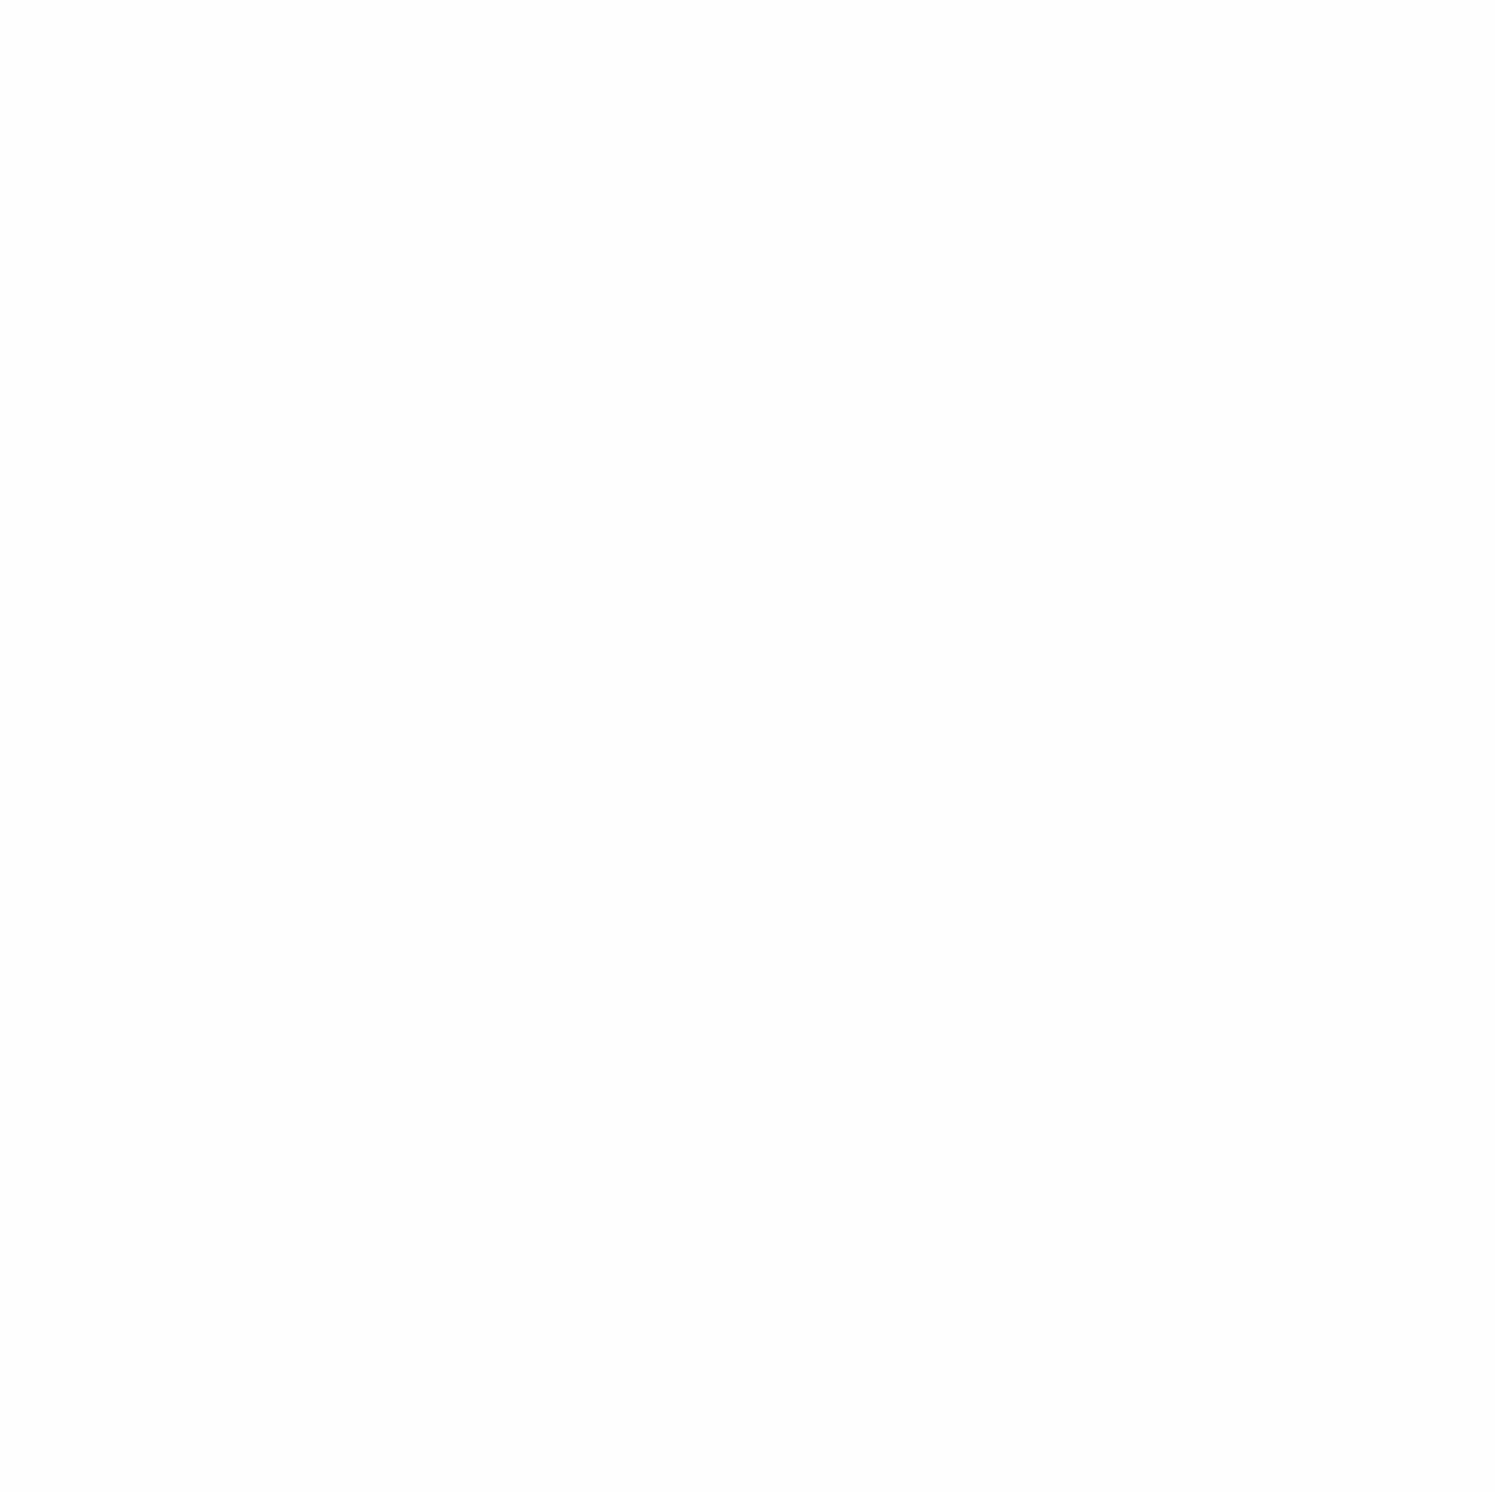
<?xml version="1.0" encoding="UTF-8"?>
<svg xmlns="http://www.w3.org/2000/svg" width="1495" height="1492">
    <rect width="100%" height="100%" fill="#FEFEFE"/>
    <image x="187" y="41" width="47" height="107" href="img_01.png"/>
    <image x="797" y="42" width="23" height="19" href="img_02.png"/>
    <image x="1110" y="41" width="18" height="18" href="img_03.png"/>
</svg>
